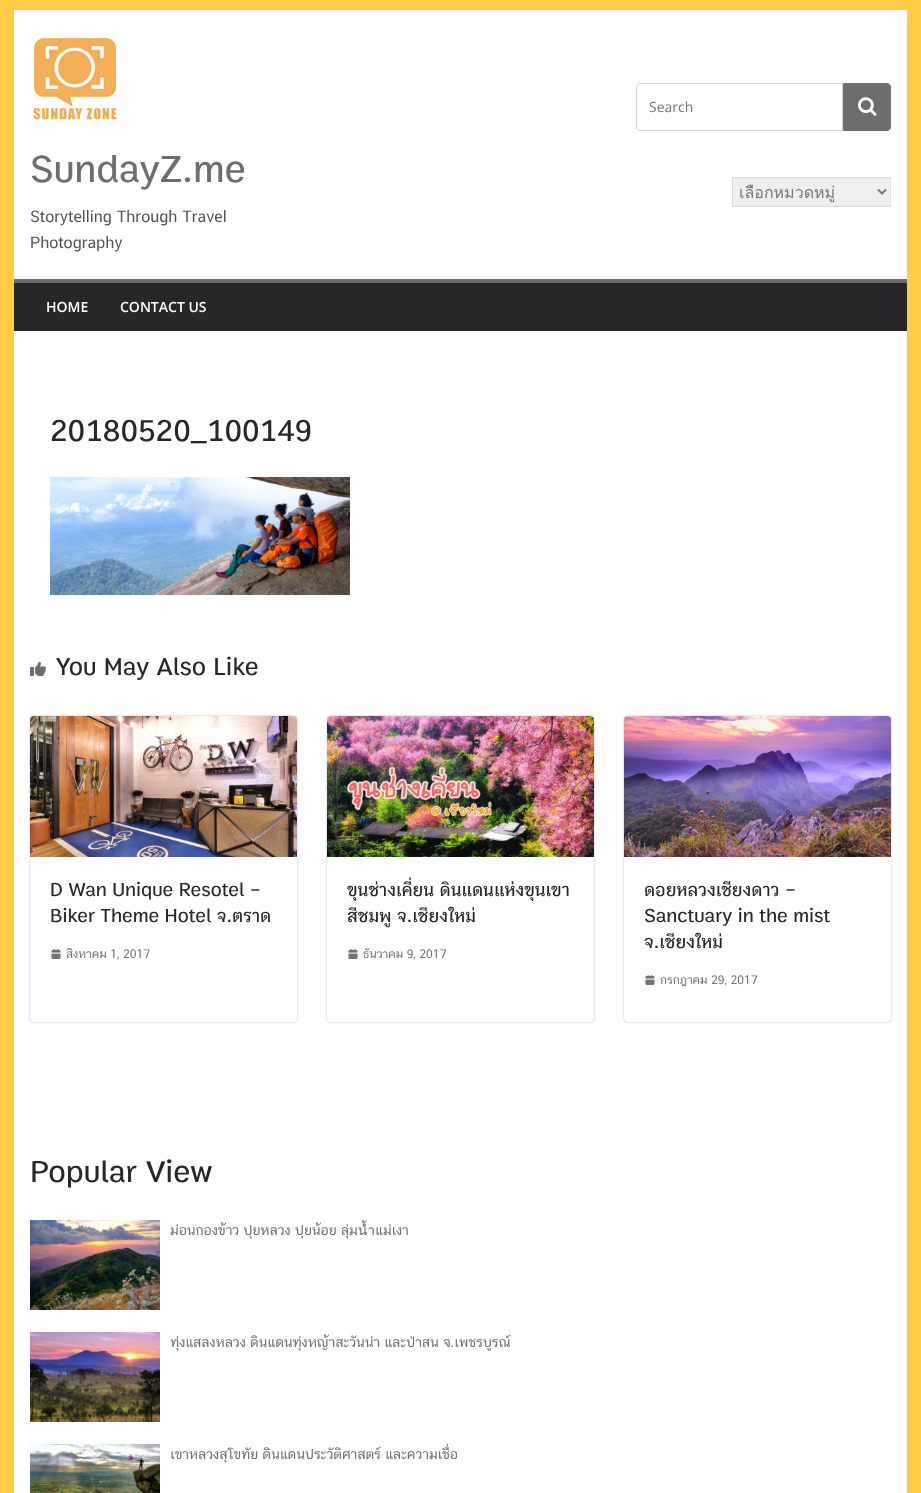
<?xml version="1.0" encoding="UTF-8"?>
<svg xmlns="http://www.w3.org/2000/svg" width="921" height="1493">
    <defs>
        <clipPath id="clip1"><rect x="739" y="180" width="133" height="24"/></clipPath>
        <clipPath id="clip2"><path d="M 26 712 H 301 V 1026 H 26 Z M 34 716 H 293 C 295 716 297 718 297 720 V 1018 C 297 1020 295 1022 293 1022 H 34 C 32 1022 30 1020 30 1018 V 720 C 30 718 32 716 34 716 Z" clip-rule="evenodd"/></clipPath>
        <filter id="blur1" x="-50%" y="-200%" width="200%" height="500%"><feGaussianBlur stdDeviation="1"/></filter>
        <clipPath id="clip3"><path d="M 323 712 H 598 V 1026 H 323 Z M 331 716 H 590 C 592 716 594 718 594 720 V 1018 C 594 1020 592 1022 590 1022 H 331 C 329 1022 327 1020 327 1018 V 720 C 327 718 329 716 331 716 Z" clip-rule="evenodd"/></clipPath>
        <clipPath id="clip4"><path d="M 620 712 H 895 V 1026 H 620 Z M 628 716 H 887 C 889 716 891 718 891 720 V 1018 C 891 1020 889 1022 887 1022 H 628 C 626 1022 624 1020 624 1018 V 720 C 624 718 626 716 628 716 Z" clip-rule="evenodd"/></clipPath>
    </defs>
    <rect width="100%" height="100%" fill="#FFCD43"/>
    <rect x="14" y="10" width="893" height="269" fill="#FFFFFF"/>
    <image x="33" y="37" width="84" height="83" href="img_01.png"/>
    <text x="30" y="182" font-family="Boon" font-size="40" font-weight="500" fill="#6D6D6D">SundayZ.me</text>
    <text font-family="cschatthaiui" font-size="16" fill="#52525B">
        <tspan x="30" y="222">Storytelling Through Travel</tspan>
        <tspan x="30" y="248">Photography</tspan>
    </text>
    <path d="M 640 83.5 H 842.5 V 130.5 H 640 C 638 130.5 636.5 129 636.5 127 V 87 C 636.5 85 638 83.5 640 83.5 Z" fill="none" stroke="#D4D4D8"/>
    <text x="649" y="112" font-family="Open Sans" font-size="14" fill="#777777">Search</text>
    <path d="M 843.5 83.5 H 887 C 889 83.5 890.5 85 890.5 87 V 127 C 890.5 129 889 130.5 887 130.5 H 843.5 Z" fill="#6D6D6D" stroke="#6D6D6D"/>
    <image x="858" y="97" width="19" height="19" href="img_02.png"/>
    <rect x="732.5" y="177.5" width="158" height="29" fill="#EFEFEF" stroke="#DDDDDD"/>
    <path d="M 878 189.5 L 882 193.5 L 886 189.5" fill="none" stroke="#777777" stroke-width="2"/>
    <g clip-path="url(#clip1)">
        <text x="739" y="198" font-family="Loma" font-size="16" fill="#777777">เลือกหมวดหมู่</text>
    </g>
    <rect x="14" y="283" width="893" height="48" fill="#27272A"/>
    <rect x="14" y="279" width="893" height="4" fill="#6D6D6D"/>
    <text x="46" y="312" font-family="Open Sans" font-size="14" font-weight="600" fill="#FFFFFF">HOME</text>
    <text x="120" y="312" font-family="Open Sans" font-size="14" font-weight="600" fill="#FFFFFF">CONTACT US</text>
    <rect x="14" y="331" width="893" height="1162" fill="#FFFFFF"/>
    <text x="50" y="441" font-family="Boon" font-size="32" font-weight="500" fill="#27272A">20180520_100149</text>
    <image x="50" y="477" width="300" height="118" href="img_03.png"/>
    <image x="30" y="662" width="16" height="14" href="img_04.png"/>
    <text x="56" y="675" font-family="Boon" font-size="26" font-weight="500" fill="#27272A">You May Also Like</text>
    <g clip-path="url(#clip2)">
        <rect x="30" y="716" width="267" height="306" rx="4" fill="#000000" fill-opacity="0.24" filter="url(#blur1)"/>
    </g>
    <image x="30" y="716" width="267" height="141" href="img_05.png"/>
    <text font-family="Boon" font-size="20" font-weight="500" fill="#27272A">
        <tspan x="50" y="896">D Wan Unique Resotel –</tspan>
        <tspan x="50" y="922">Biker Theme Hotel จ.ตราด</tspan>
    </text>
    <text x="66" y="958" font-family="cschatthaiui" font-size="12" fill="#71717A">สิงหาคม 1, 2017</text>
    <image x="51" y="949" width="10" height="10" href="img_06.png"/>
    <g clip-path="url(#clip3)">
        <rect x="327" y="716" width="267" height="306" rx="4" fill="#000000" fill-opacity="0.24" filter="url(#blur1)"/>
    </g>
    <image x="327" y="716" width="267" height="141" href="img_07.png"/>
    <text font-family="Boon" font-size="20" font-weight="500" fill="#27272A">
        <tspan x="347" y="896">ขุนช่างเคี่ยน ดินแดนแห่งขุนเขา</tspan>
        <tspan x="347" y="922">สีชมพู จ.เชียงใหม่</tspan>
    </text>
    <image x="348" y="949" width="10" height="10" href="img_08.png"/>
    <text x="363" y="958" font-family="cschatthaiui" font-size="12" fill="#71717A">ธันวาคม 9, 2017</text>
    <g clip-path="url(#clip4)">
        <rect x="624" y="716" width="267" height="306" rx="4" fill="#000000" fill-opacity="0.24" filter="url(#blur1)"/>
    </g>
    <image x="624" y="716" width="267" height="141" href="img_09.png"/>
    <text font-family="Boon" font-size="20" font-weight="500" fill="#27272A">
        <tspan x="644" y="896">ดอยหลวงเชียงดาว –</tspan>
        <tspan x="644" y="922">Sanctuary in the mist</tspan>
        <tspan x="644" y="948">จ.เชียงใหม่</tspan>
    </text>
    <image x="645" y="975" width="10" height="10" href="img_08.png"/>
    <text x="660" y="984" font-family="cschatthaiui" font-size="12" fill="#71717A">กรกฎาคม 29, 2017</text>
    <text x="30" y="1182" font-family="Boon" font-size="32" font-weight="500" fill="#27272A">Popular View</text>
    <image x="30" y="1220" width="130" height="90" href="img_10.png"/>
    <text x="170" y="1235" font-family="cschatthaiui" font-size="14" fill="#6D6D6D">ม่อนกองข้าว ปุยหลวง ปุยน้อย ลุ่มน้ำแม่เงา</text>
    <image x="30" y="1332" width="130" height="90" href="img_11.png"/>
    <text x="170" y="1347" font-family="cschatthaiui" font-size="14" fill="#6D6D6D">ทุ่งแสลงหลวง ดินแดนทุ่งหญ้าสะวันน่า และป่าสน จ.เพชรบูรณ์</text>
    <image x="30" y="1444" width="130" height="49" href="img_12.png"/>
    <text x="170" y="1459" font-family="cschatthaiui" font-size="14" fill="#6D6D6D">เขาหลวงสุโขทัย ดินแดนประวัติศาสตร์ และความเชื่อ</text>
</svg>
